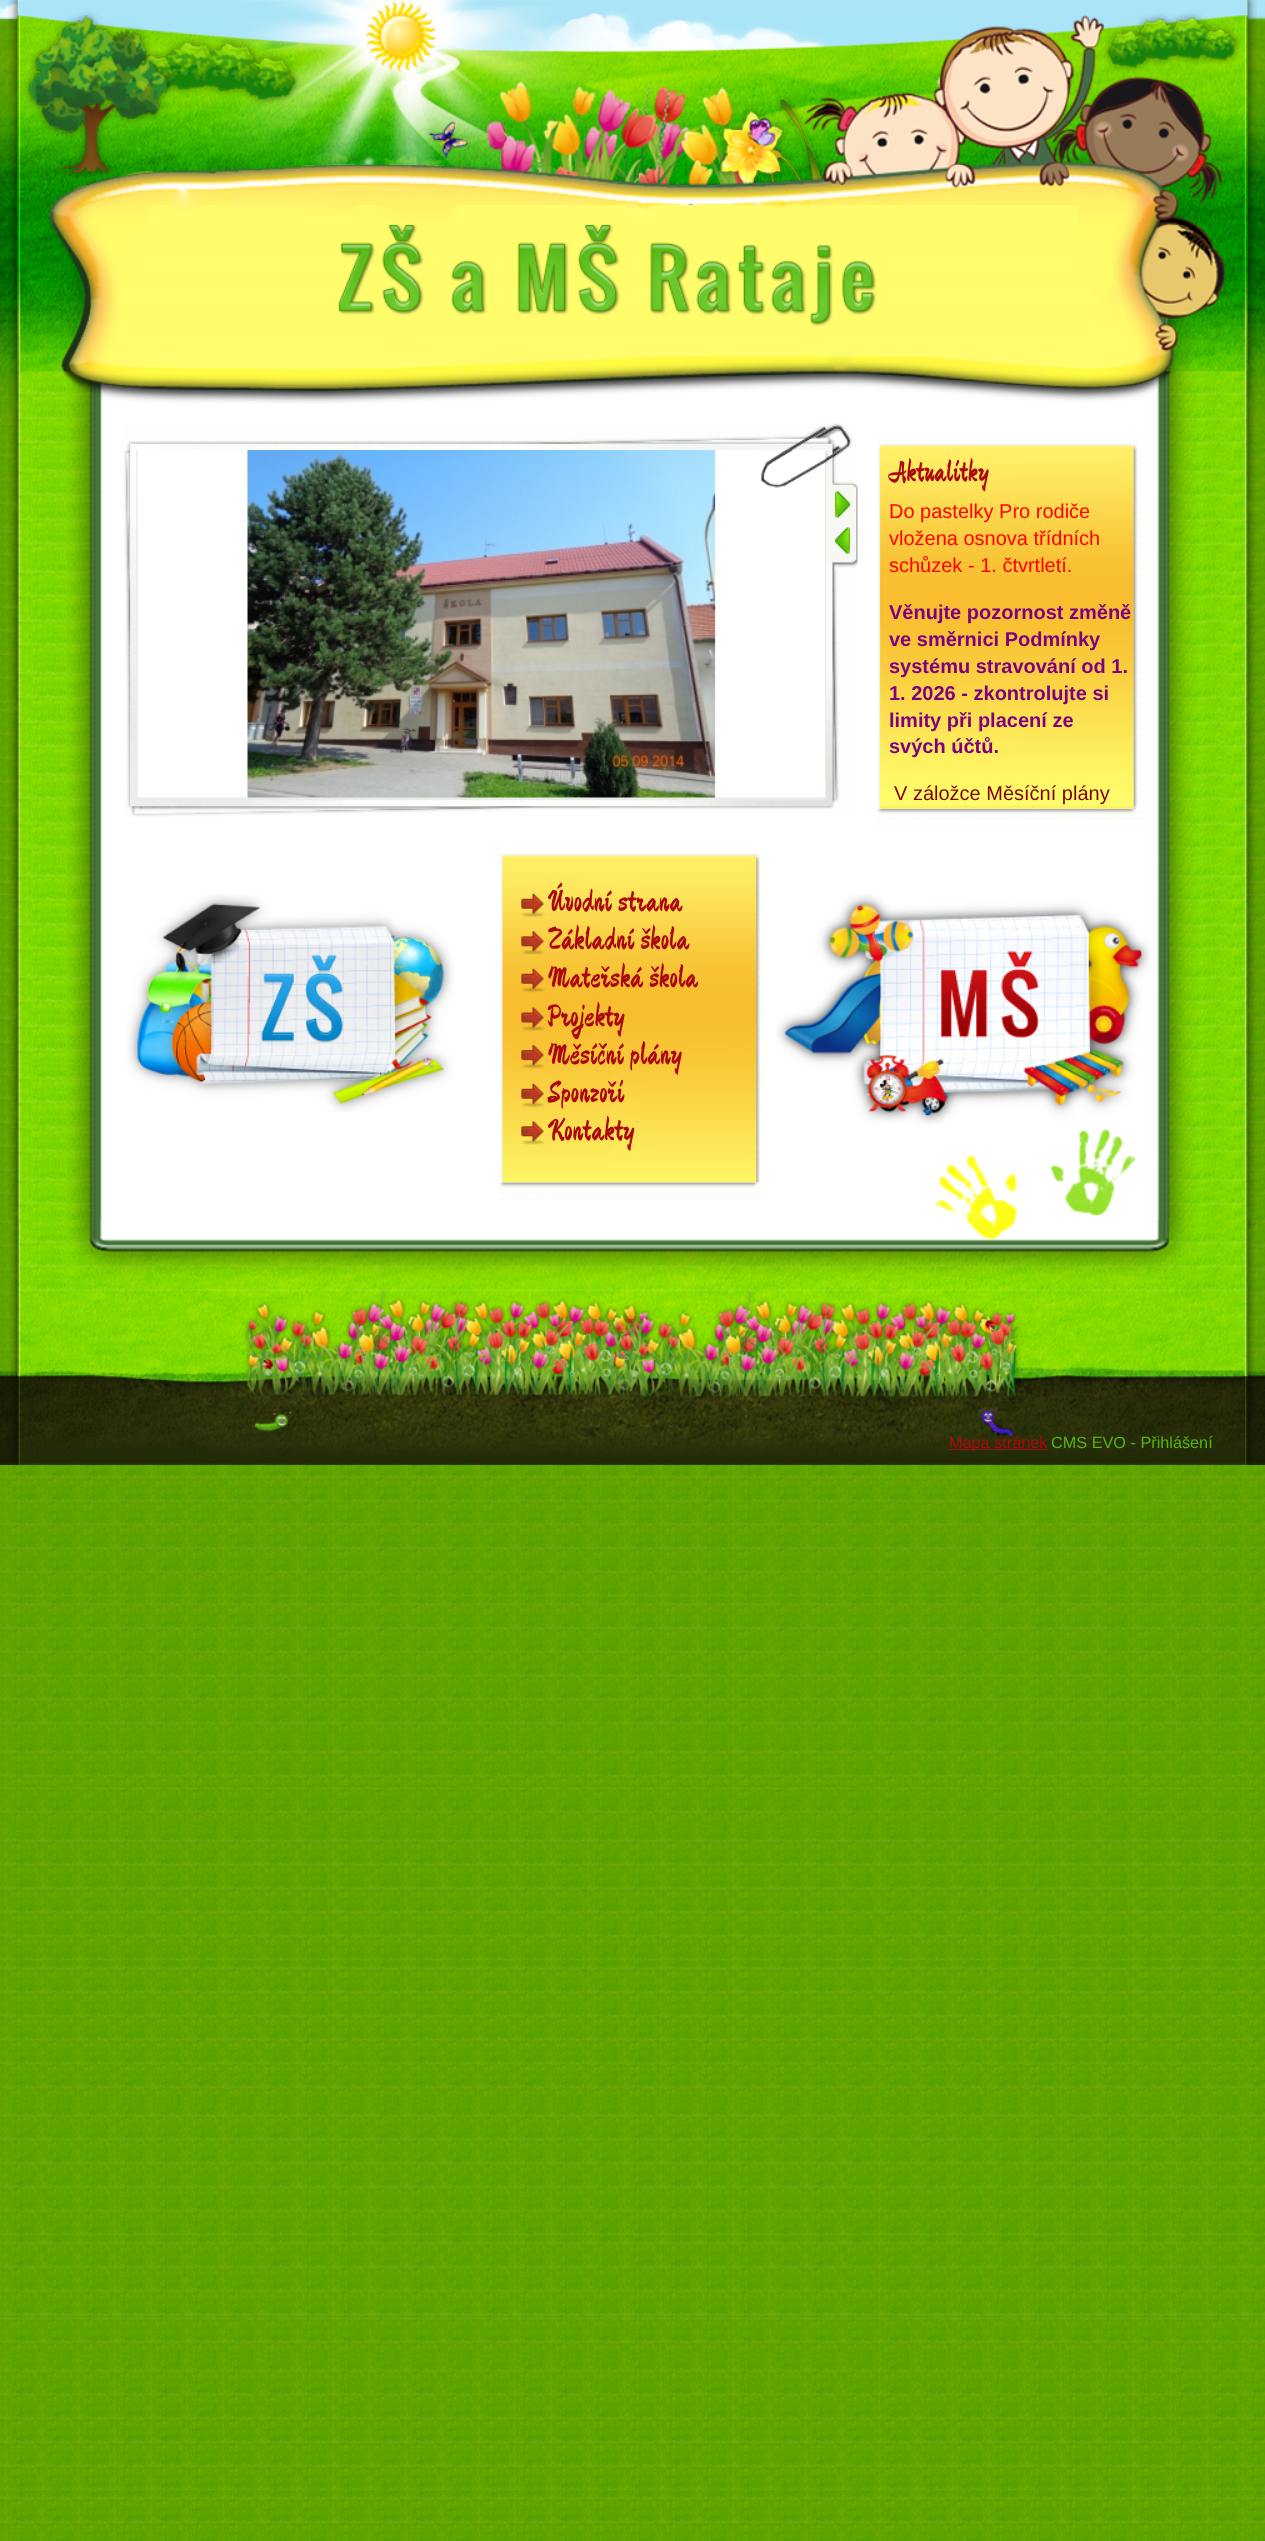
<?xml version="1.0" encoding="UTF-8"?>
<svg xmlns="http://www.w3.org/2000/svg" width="1265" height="2541">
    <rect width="100%" height="100%" fill="#FFFFFF"/>
    <image x="0" y="425" width="1265" height="2116" href="img_01.png"/>
    <image x="0" y="0" width="1265" height="425" href="img_02.png"/>
    <image x="8" y="0" width="1249" height="1220" href="img_03.png"/>
    <image x="17" y="0" width="1231" height="404" href="img_04.png"/>
    <image x="123" y="422" width="735" height="396" href="img_05.png"/>
    <image x="137" y="450" width="688" height="348" href="img_07.png"/>
    <image x="761" y="449" width="67" height="39" href="img_06.png"/>
    <image x="835" y="491" width="15" height="27" href="img_08.png"/>
    <image x="835" y="527" width="15" height="27" href="img_09.png"/>
    <image x="876" y="443" width="268" height="4" href="img_10.png"/>
    <image x="876" y="808" width="268" height="18" href="img_12.png"/>
    <image x="876" y="446" width="268" height="363" href="img_11.png"/>
    <text x="889" y="481" font-family="Devonshire" font-size="29" fill="#AC090E">Aktualitky</text>
    <text font-family="Liberation Sans" font-size="20" fill="#FF0000">
        <tspan x="889" y="518">Do pastelky Pro rodiče</tspan>
        <tspan x="889" y="545">vložena osnova třídních</tspan>
        <tspan x="889" y="572">schůzek - 1. čtvrtletí.</tspan>
    </text>
    <text font-family="Liberation Sans" font-size="20" font-weight="700" fill="#800080">
        <tspan x="889" y="619">Věnujte pozornost změně</tspan>
        <tspan x="889" y="646">ve směrnici Podmínky</tspan>
        <tspan x="889" y="673">systému stravování od 1.</tspan>
        <tspan x="889" y="700">1. 2026 - zkontrolujte si</tspan>
        <tspan x="889" y="727">limity při placení ze</tspan>
        <tspan x="889" y="753">svých účtů.</tspan>
    </text>
    <text x="894" y="800" font-family="Liberation Sans" font-size="20" fill="#800000">V záložce Měsíční plány</text>
    <image x="126" y="894" width="328" height="218" href="img_13.png"/>
    <image x="499" y="853" width="267" height="4" href="img_14.png"/>
    <image x="499" y="856" width="267" height="327" href="img_15.png"/>
    <image x="521" y="893" width="24" height="25" href="img_16.png"/>
    <text x="548" y="911" font-family="Devonshire" font-size="30.5" fill="#AC090E">Úvodní strana</text>
    <image x="521" y="931" width="24" height="24" href="img_17.png"/>
    <text x="548" y="949" font-family="Devonshire" font-size="30.5" fill="#AC090E">Základní škola</text>
    <image x="521" y="968" width="24" height="25" href="img_18.png"/>
    <text x="548" y="987" font-family="Devonshire" font-size="30.5" fill="#AC090E">Mateřská škola</text>
    <image x="521" y="1007" width="24" height="24" href="img_19.png"/>
    <text x="548" y="1026" font-family="Devonshire" font-size="30.5" fill="#AC090E">Projekty</text>
    <image x="521" y="1044" width="24" height="25" href="img_20.png"/>
    <text x="548" y="1064" font-family="Devonshire" font-size="30.5" fill="#AC090E">Měsíční plány</text>
    <image x="521" y="1083" width="24" height="25" href="img_21.png"/>
    <text x="548" y="1102" font-family="Devonshire" font-size="30.5" fill="#AC090E">Sponzoři</text>
    <image x="521" y="1121" width="24" height="24" href="img_22.png"/>
    <text x="548" y="1140" font-family="Devonshire" font-size="30.5" fill="#AC090E">Kontakty</text>
    <image x="499" y="1182" width="267" height="18" href="img_23.png"/>
    <image x="776" y="894" width="375" height="231" href="img_24.png"/>
    <image x="0" y="1371" width="1265" height="94" href="img_25.png"/>
    <image x="10" y="1220" width="1246" height="245" href="img_26.png"/>
    <image x="935" y="1155" width="83" height="85" href="img_27.png"/>
    <image x="1050" y="1128" width="86" height="89" href="img_28.png"/>
    <rect x="949" y="1449" width="99" height="1" fill="#AC090E"/>
    <text x="949" y="1448" font-family="Liberation Sans" font-size="16.25" fill="#AC090E">Mapa stránek</text>
    <text x="1051" y="1448" font-family="Liberation Sans" font-size="16.25" fill="#55B40E">CMS EVO - Přihlášení</text>
</svg>
